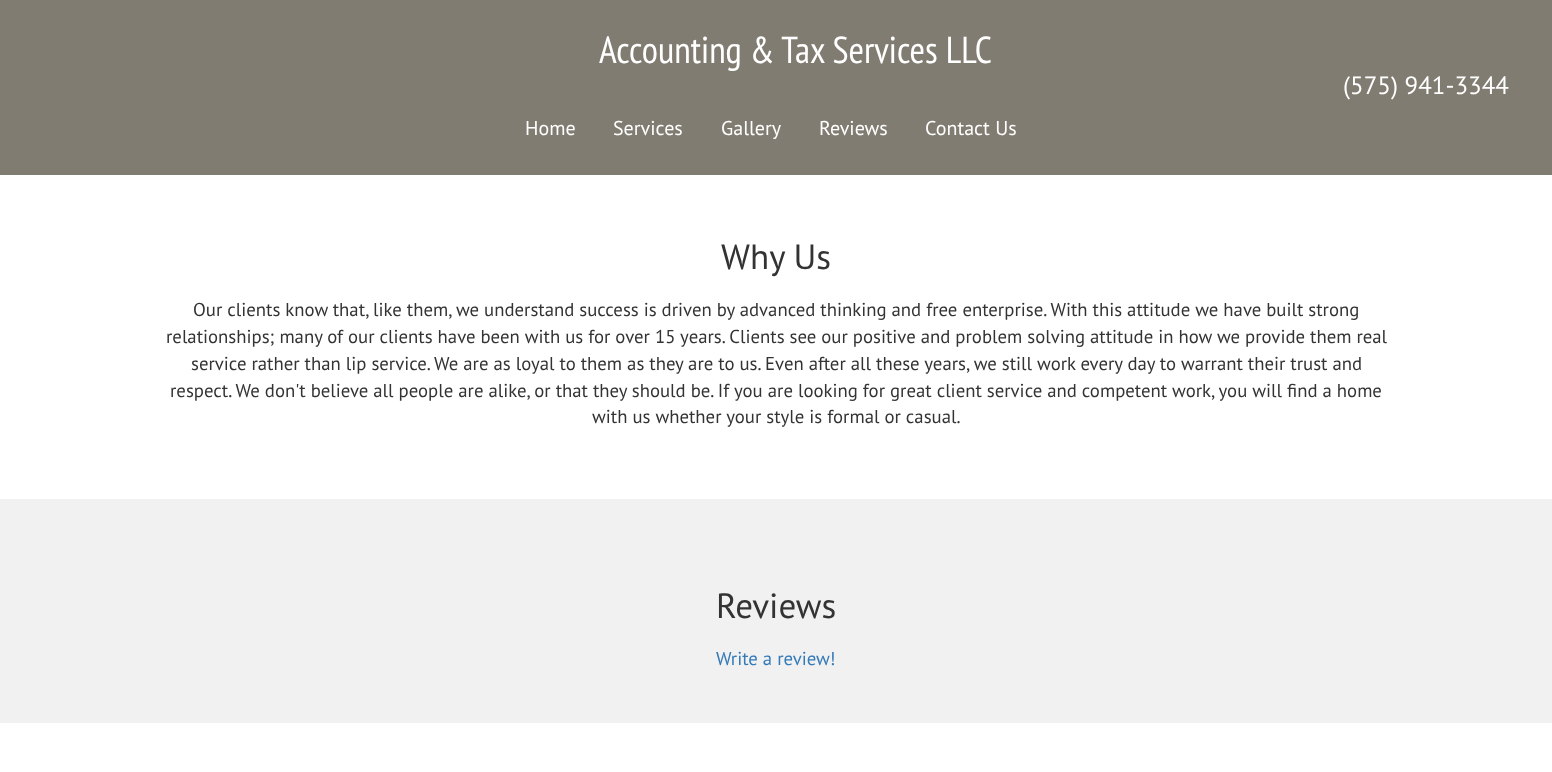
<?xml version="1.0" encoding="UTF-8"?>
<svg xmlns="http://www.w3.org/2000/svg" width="1552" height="772">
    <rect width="100%" height="100%" fill="#FFFFFF"/>
    <rect x="0" y="0" width="1552" height="175" fill="#807C71"/>
    <text x="599" y="63" font-family="PT Sans Narrow" font-size="37.5" fill="#FFFFFF">Accounting &amp; Tax Services LLC</text>
    <text x="1343" y="94" font-family="PT Sans" font-size="25" fill="#FFFFFF">(575) 941-3344</text>
    <text x="525" y="135" font-family="PT Sans" font-size="20" fill="#FFFFFF">Home</text>
    <text x="613" y="135" font-family="PT Sans" font-size="20" fill="#FFFFFF">Services</text>
    <text x="721" y="135" font-family="PT Sans" font-size="20" fill="#FFFFFF">Gallery</text>
    <text x="819" y="135" font-family="PT Sans" font-size="20" fill="#FFFFFF">Reviews</text>
    <text x="925" y="135" font-family="PT Sans" font-size="20" fill="#FFFFFF">Contact Us</text>
    <text x="721" y="269" font-family="PT Sans" font-size="35" fill="#333333">Why Us</text>
    <text x="193" y="316" font-family="PT Sans" font-size="18.75" fill="#333333">Our clients know that, like them, we understand success is driven by advanced thinking and free enterprise. With this attitude we have built strong</text>
    <text x="166" y="343" font-family="PT Sans" font-size="18.75" fill="#333333">relationships; many of our clients have been with us for over 15 years. Clients see our positive and problem solving attitude in how we provide them real</text>
    <text x="191" y="370" font-family="PT Sans" font-size="18.75" fill="#333333">service rather than lip service. We are as loyal to them as they are to us. Even after all these years, we still work every day to warrant their trust and</text>
    <text x="170" y="397" font-family="PT Sans" font-size="18.75" fill="#333333">respect. We don't believe all people are alike, or that they should be. If you are looking for great client service and competent work, you will find a home</text>
    <text x="592" y="423" font-family="PT Sans" font-size="18.75" fill="#333333">with us whether your style is formal or casual.</text>
    <rect x="0" y="499" width="1552" height="224" fill="#F1F1F1"/>
    <text x="716" y="618" font-family="PT Sans" font-size="35" fill="#333333">Reviews</text>
    <text x="716" y="665" font-family="PT Sans" font-size="18.75" fill="#337AB7">Write a review!</text>
</svg>
